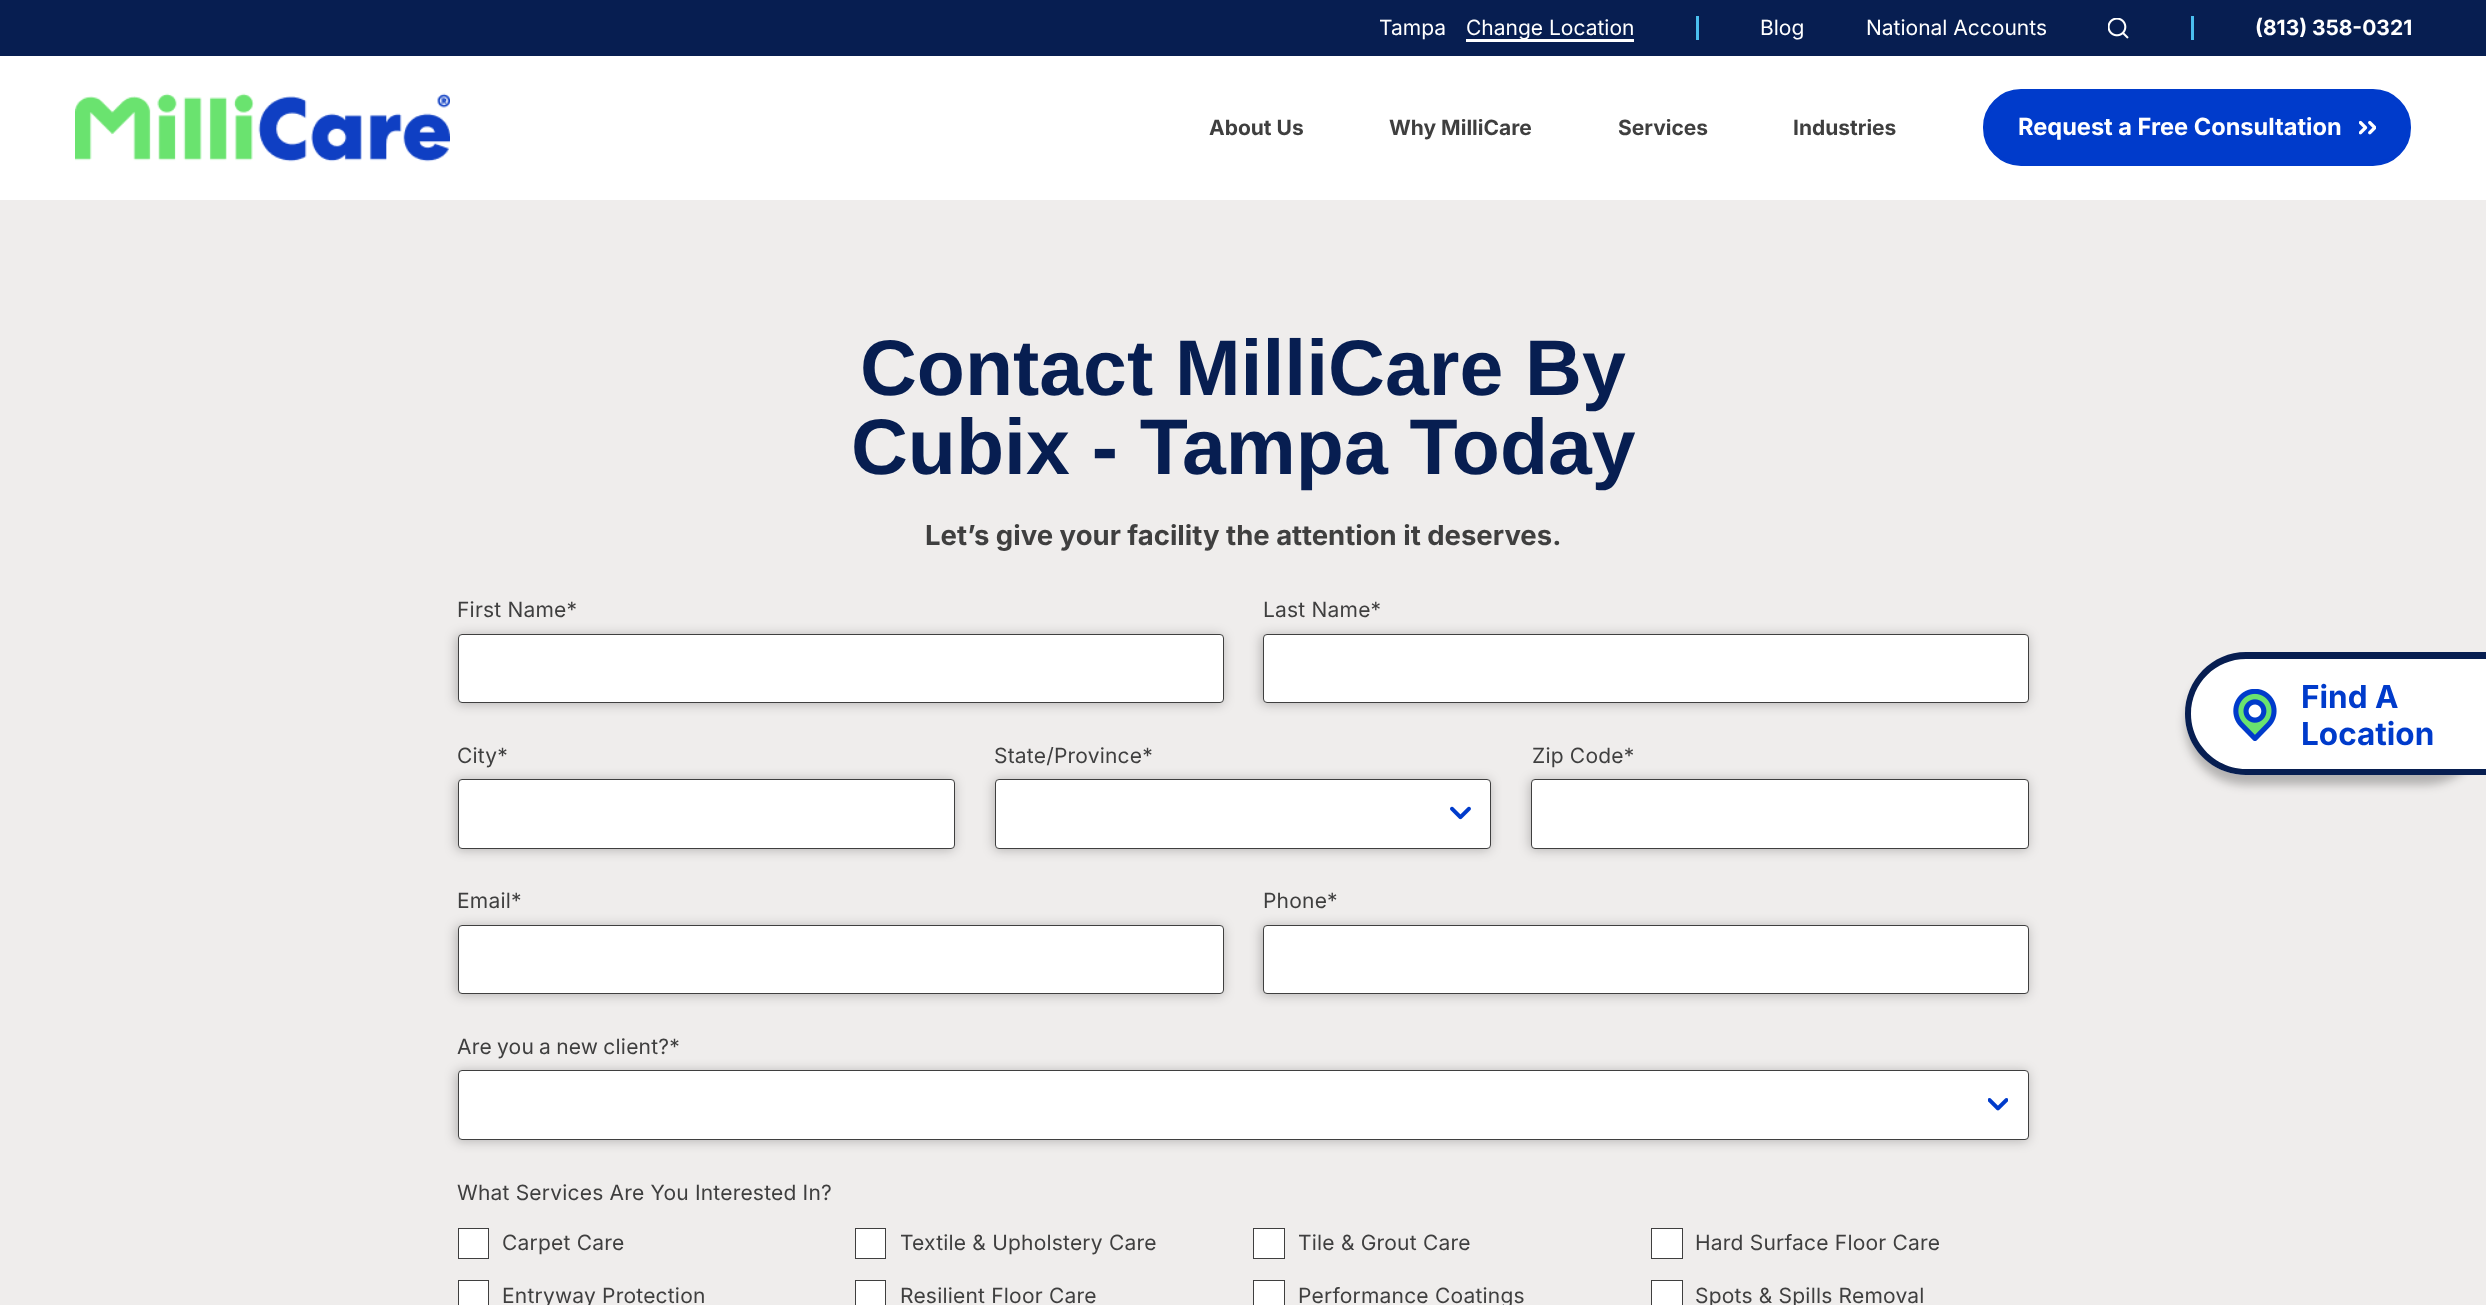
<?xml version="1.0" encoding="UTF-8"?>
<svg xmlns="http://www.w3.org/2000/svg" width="2486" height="1305">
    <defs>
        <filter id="blur1" x="-50%" y="-200%" width="200%" height="500%"><feGaussianBlur stdDeviation="6"/></filter>
        <filter id="blur2" x="-50%" y="-200%" width="200%" height="500%"><feGaussianBlur stdDeviation="5"/></filter>
    </defs>
    <rect width="100%" height="100%" fill="#FFFFFF"/>
    <rect x="0" y="0" width="2486" height="56" fill="#071E51"/>
    <text x="1379" y="35" font-family="Inter" font-size="21" fill="#FFFFFF">Tampa</text>
    <text x="1466" y="35" font-family="Inter" font-size="21" fill="#FFFFFF">Change Location</text>
    <rect x="1466" y="39" width="168" height="3" fill="#FFFFFF"/>
    <rect x="1696" y="16" width="3" height="24" fill="#4ABFEF"/>
    <text x="1760" y="35" font-family="Inter" font-size="21" fill="#FFFFFF">Blog</text>
    <text x="1866" y="35" font-family="Inter" font-size="21" fill="#FFFFFF">National Accounts</text>
    <image x="2108" y="18" width="21" height="21" href="img_01.png"/>
    <rect x="2191" y="16" width="3" height="24" fill="#4ABFEF"/>
    <text x="2255" y="35" font-family="Inter" font-size="21" font-weight="700" fill="#FFFFFF">(813) 358-0321</text>
    <image x="75" y="93" width="375" height="69" href="img_02.png"/>
    <text x="1209" y="135" font-family="Inter" font-size="21" font-weight="700" fill="#3F3F3F">About Us</text>
    <text x="1389" y="135" font-family="Inter" font-size="21" font-weight="700" fill="#3F3F3F">Why MilliCare</text>
    <text x="1618" y="135" font-family="Inter" font-size="21" font-weight="700" fill="#3F3F3F">Services</text>
    <text x="1793" y="135" font-family="Inter" font-size="21" font-weight="700" fill="#3F3F3F">Industries</text>
    <rect x="1985" y="91" width="424" height="73" rx="36" fill="#003BCB" stroke="#003BCB" stroke-width="4"/>
    <text x="2018" y="135" font-family="Inter" font-size="23.6" font-weight="700" fill="#FFFFFF">Request a Free Consultation</text>
    <image x="2359" y="120" width="17" height="15" href="img_03.png"/>
    <rect x="0" y="200" width="2486" height="1105" fill="#EFEDEC"/>
    <text x="860" y="395" font-family="Liberation Sans" font-size="78.75" font-weight="700" fill="#071E51">Contact MilliCare By</text>
    <text x="851" y="474" font-family="Liberation Sans" font-size="78.75" font-weight="700" fill="#071E51">Cubix - Tampa Today</text>
    <text x="925" y="545" font-family="Inter" font-size="27.5" font-weight="700" fill="#3F3F3F">Let’s give your facility the attention it deserves.</text>
    <text x="457" y="617" font-family="Inter" font-size="21" letter-spacing="0.2" fill="#3F3F3F">First Name*</text>
    <rect x="456" y="635" width="767" height="69" rx="4" fill="#000000" fill-opacity="0.25" filter="url(#blur1)"/>
    <rect x="458.5" y="634.5" width="765" height="68" rx="3.5" fill="#FFFFFF" stroke="#3F3F3F"/>
    <text x="1263" y="617" font-family="Inter" font-size="21" letter-spacing="0.2" fill="#3F3F3F">Last Name*</text>
    <rect x="1261" y="635" width="767" height="69" rx="4" fill="#000000" fill-opacity="0.25" filter="url(#blur1)"/>
    <rect x="1263.5" y="634.5" width="765" height="68" rx="3.5" fill="#FFFFFF" stroke="#3F3F3F"/>
    <text x="457" y="763" font-family="Inter" font-size="21" letter-spacing="0.2" fill="#3F3F3F">City*</text>
    <rect x="456" y="780" width="498" height="70" rx="4" fill="#000000" fill-opacity="0.25" filter="url(#blur1)"/>
    <rect x="458.5" y="779.5" width="496" height="69" rx="3.5" fill="#FFFFFF" stroke="#3F3F3F"/>
    <text x="994" y="763" font-family="Inter" font-size="21" letter-spacing="0.2" fill="#3F3F3F">State/Province*</text>
    <rect x="994" y="780" width="496" height="70" rx="4" fill="#000000" fill-opacity="0.25" filter="url(#blur1)"/>
    <rect x="995.5" y="779.5" width="495" height="69" rx="3.5" fill="#FFFFFF" stroke="#3F3F3F"/>
    <image x="1450" y="806" width="21" height="14" href="img_04.png"/>
    <text x="1532" y="763" font-family="Inter" font-size="21" letter-spacing="0.2" fill="#3F3F3F">Zip Code*</text>
    <rect x="1530" y="780" width="498" height="70" rx="4" fill="#000000" fill-opacity="0.25" filter="url(#blur1)"/>
    <rect x="1531.5" y="779.5" width="497" height="69" rx="3.5" fill="#FFFFFF" stroke="#3F3F3F"/>
    <text x="457" y="908" font-family="Inter" font-size="21" letter-spacing="0.2" fill="#3F3F3F">Email*</text>
    <rect x="456" y="926" width="767" height="69" rx="4" fill="#000000" fill-opacity="0.25" filter="url(#blur1)"/>
    <rect x="458.5" y="925.5" width="765" height="68" rx="3.5" fill="#FFFFFF" stroke="#3F3F3F"/>
    <text x="1263" y="908" font-family="Inter" font-size="21" letter-spacing="0.2" fill="#3F3F3F">Phone*</text>
    <rect x="1261" y="926" width="767" height="69" rx="4" fill="#000000" fill-opacity="0.25" filter="url(#blur1)"/>
    <rect x="1263.5" y="925.5" width="765" height="68" rx="3.5" fill="#FFFFFF" stroke="#3F3F3F"/>
    <text x="457" y="1054" word-spacing="-1" font-family="Inter" font-size="21" letter-spacing="0.2" fill="#3F3F3F">Are you a new client?*</text>
    <rect x="456" y="1071" width="1572" height="70" rx="4" fill="#000000" fill-opacity="0.25" filter="url(#blur1)"/>
    <rect x="458.5" y="1070.5" width="1570" height="69" rx="3.5" fill="#FFFFFF" stroke="#3F3F3F"/>
    <image x="1988" y="1098" width="20" height="13" href="img_05.png"/>
    <text x="457" y="1200" font-family="Inter" font-size="21" letter-spacing="0.2" fill="#3F3F3F">What Services Are You Interested In?</text>
    <rect x="458.5" y="1228.5" width="30" height="30" fill="#FFFFFF" stroke="#3F3F3F"/>
    <text x="502" y="1250" font-family="Inter" font-size="21" letter-spacing="0.2" fill="#3F3F3F">Carpet Care</text>
    <rect x="855.5" y="1228.5" width="30" height="30" fill="#FFFFFF" stroke="#3F3F3F"/>
    <text x="900" y="1250" font-family="Inter" font-size="21" letter-spacing="0.2" fill="#3F3F3F">Textile &amp; Upholstery Care</text>
    <rect x="1253.5" y="1228.5" width="31" height="30" fill="#FFFFFF" stroke="#3F3F3F"/>
    <text x="1298" y="1250" font-family="Inter" font-size="21" letter-spacing="0.2" fill="#3F3F3F">Tile &amp; Grout Care</text>
    <rect x="1651.5" y="1228.5" width="31" height="30" fill="#FFFFFF" stroke="#3F3F3F"/>
    <text x="1695" y="1250" font-family="Inter" font-size="21" letter-spacing="0.2" fill="#3F3F3F">Hard Surface Floor Care</text>
    <rect x="458.5" y="1280.5" width="30" height="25" fill="#FFFFFF" stroke="#3F3F3F"/>
    <text x="502" y="1303" font-family="Inter" font-size="21" letter-spacing="0.2" fill="#3F3F3F">Entryway Protection</text>
    <rect x="855.5" y="1280.5" width="30" height="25" fill="#FFFFFF" stroke="#3F3F3F"/>
    <text x="900" y="1303" font-family="Inter" font-size="21" letter-spacing="0.2" fill="#3F3F3F">Resilient Floor Care</text>
    <rect x="1253.5" y="1280.5" width="31" height="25" fill="#FFFFFF" stroke="#3F3F3F"/>
    <text x="1298" y="1303" font-family="Inter" font-size="21" letter-spacing="0.2" fill="#3F3F3F">Performance Coatings</text>
    <rect x="1651.5" y="1280.5" width="31" height="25" fill="#FFFFFF" stroke="#3F3F3F"/>
    <text x="1695" y="1303" font-family="Inter" font-size="21" letter-spacing="0.2" fill="#3F3F3F">Spots &amp; Spills Removal</text>
    <rect x="2185" y="663" width="301" height="122" rx="61" fill="#000000" fill-opacity="0.25" filter="url(#blur2)"/>
    <path d="M 2246 653 H 2486 V 775 H 2246 C 2212.5 775 2185 747.5 2185 714 C 2185 680.5 2212.5 653 2246 653 Z" fill="#FFFFFF"/>
    <path d="M 2246 652 H 2486 V 775 H 2246 C 2212 775 2185 748 2185 714 C 2185 680 2212 652 2246 652 Z M 2246 659 H 2486 V 769 H 2246 C 2216 769 2191 744 2191 714 C 2191 683 2216 659 2246 659 Z" fill="#071E51" fill-rule="evenodd"/>
    <image x="2233" y="689" width="44" height="52" href="img_06.png"/>
    <text font-family="Inter" font-size="31.5" font-weight="700" fill="#003BCB">
        <tspan x="2301" y="708">Find A</tspan>
        <tspan x="2301" y="745">Location</tspan>
    </text>
</svg>
